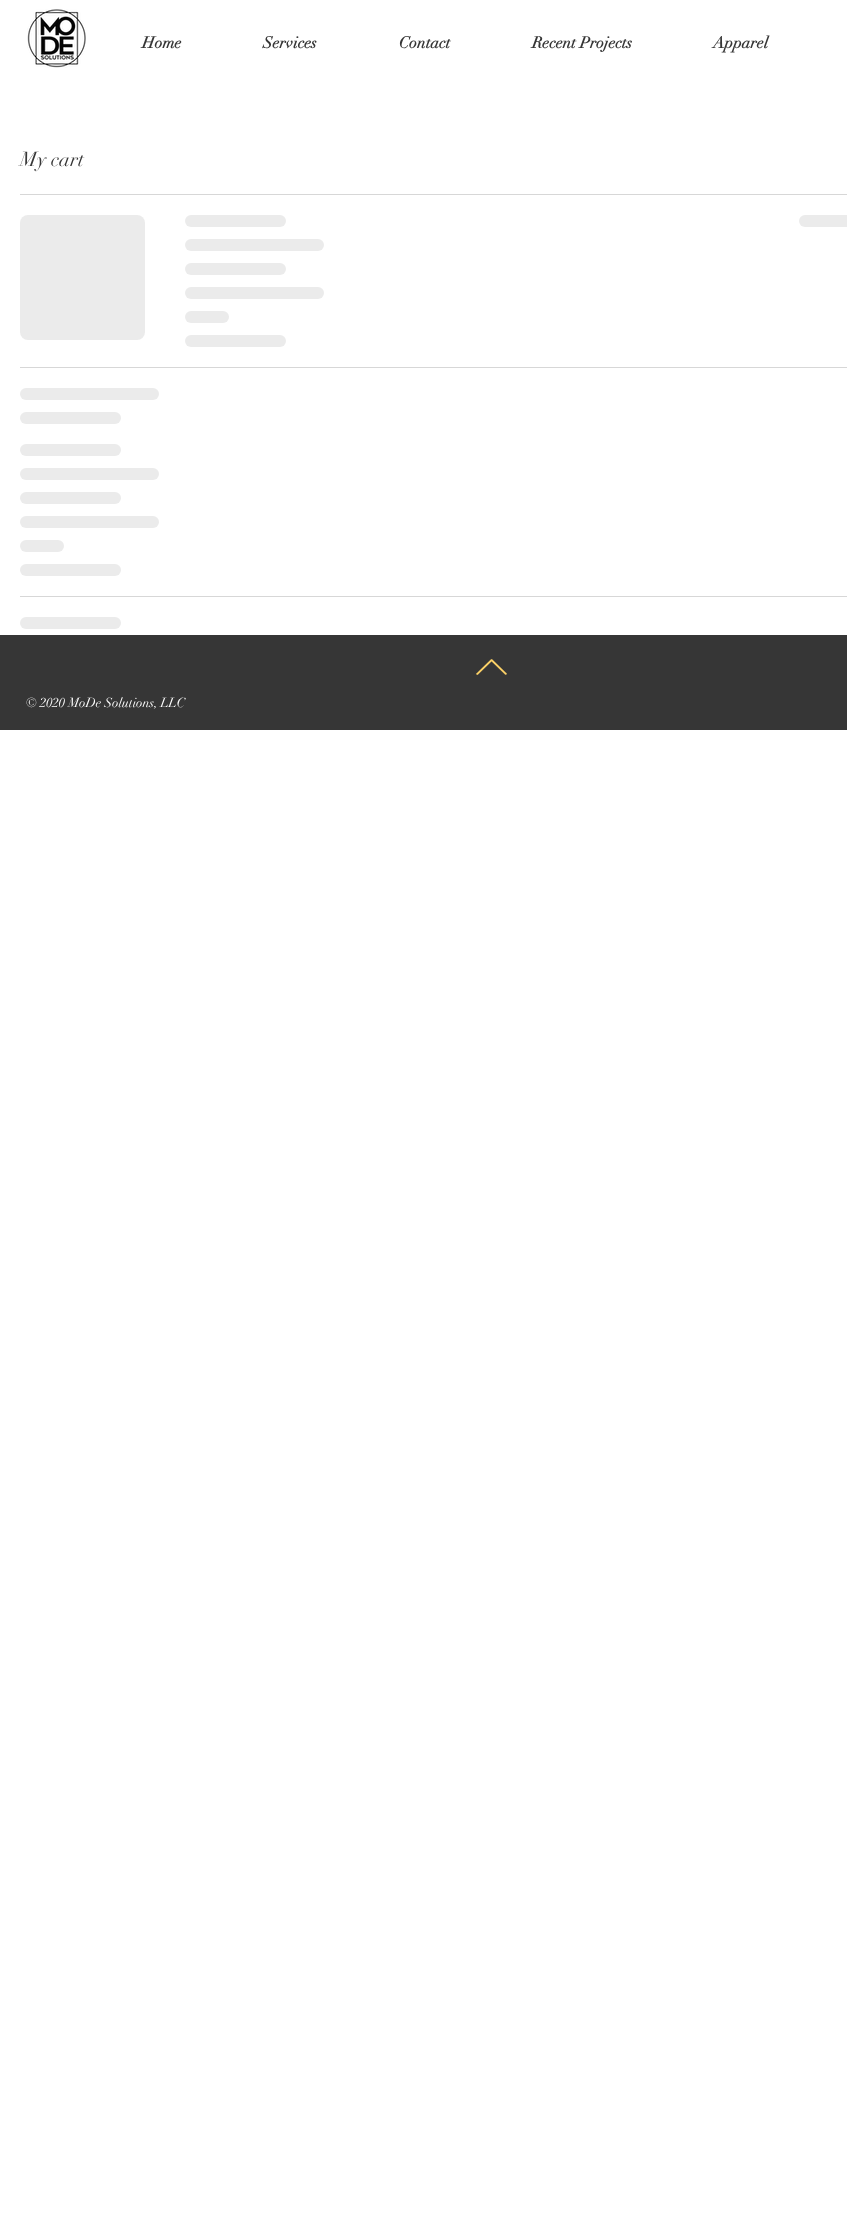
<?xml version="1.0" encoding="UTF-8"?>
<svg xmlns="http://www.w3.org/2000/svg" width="847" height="2229">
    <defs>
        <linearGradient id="g1" gradientUnits="userSpaceOnUse" x1="20" y1="278" x2="520" y2="278"><stop offset="0.25" stop-color="#EBEBEB"/><stop offset="0.37" stop-color="#D7D7D7"/><stop offset="0.63" stop-color="#EBEBEB"/></linearGradient>
        <linearGradient id="g2" gradientUnits="userSpaceOnUse" x1="185" y1="221" x2="589" y2="221"><stop offset="0.25" stop-color="#EBEBEB"/><stop offset="0.37" stop-color="#D7D7D7"/><stop offset="0.63" stop-color="#EBEBEB"/></linearGradient>
        <linearGradient id="g3" gradientUnits="userSpaceOnUse" x1="185" y1="245" x2="741" y2="245"><stop offset="0.25" stop-color="#EBEBEB"/><stop offset="0.37" stop-color="#D7D7D7"/><stop offset="0.63" stop-color="#EBEBEB"/></linearGradient>
        <linearGradient id="g4" gradientUnits="userSpaceOnUse" x1="185" y1="269" x2="589" y2="269"><stop offset="0.25" stop-color="#EBEBEB"/><stop offset="0.37" stop-color="#D7D7D7"/><stop offset="0.63" stop-color="#EBEBEB"/></linearGradient>
        <linearGradient id="g5" gradientUnits="userSpaceOnUse" x1="185" y1="293" x2="741" y2="293"><stop offset="0.25" stop-color="#EBEBEB"/><stop offset="0.37" stop-color="#D7D7D7"/><stop offset="0.63" stop-color="#EBEBEB"/></linearGradient>
        <linearGradient id="g6" gradientUnits="userSpaceOnUse" x1="185" y1="317" x2="361" y2="317"><stop offset="0.25" stop-color="#EBEBEB"/><stop offset="0.37" stop-color="#D7D7D7"/><stop offset="0.63" stop-color="#EBEBEB"/></linearGradient>
        <linearGradient id="g7" gradientUnits="userSpaceOnUse" x1="185" y1="341" x2="589" y2="341"><stop offset="0.25" stop-color="#EBEBEB"/><stop offset="0.37" stop-color="#D7D7D7"/><stop offset="0.63" stop-color="#EBEBEB"/></linearGradient>
        <linearGradient id="g8" gradientUnits="userSpaceOnUse" x1="799" y1="221" x2="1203" y2="221"><stop offset="0.25" stop-color="#EBEBEB"/><stop offset="0.37" stop-color="#D7D7D7"/><stop offset="0.63" stop-color="#EBEBEB"/></linearGradient>
        <linearGradient id="g9" gradientUnits="userSpaceOnUse" x1="20" y1="394" x2="576" y2="394"><stop offset="0.25" stop-color="#EBEBEB"/><stop offset="0.37" stop-color="#D7D7D7"/><stop offset="0.63" stop-color="#EBEBEB"/></linearGradient>
        <linearGradient id="g10" gradientUnits="userSpaceOnUse" x1="20" y1="418" x2="424" y2="418"><stop offset="0.25" stop-color="#EBEBEB"/><stop offset="0.37" stop-color="#D7D7D7"/><stop offset="0.63" stop-color="#EBEBEB"/></linearGradient>
        <linearGradient id="g11" gradientUnits="userSpaceOnUse" x1="20" y1="450" x2="424" y2="450"><stop offset="0.25" stop-color="#EBEBEB"/><stop offset="0.37" stop-color="#D7D7D7"/><stop offset="0.63" stop-color="#EBEBEB"/></linearGradient>
        <linearGradient id="g12" gradientUnits="userSpaceOnUse" x1="20" y1="474" x2="576" y2="474"><stop offset="0.25" stop-color="#EBEBEB"/><stop offset="0.37" stop-color="#D7D7D7"/><stop offset="0.63" stop-color="#EBEBEB"/></linearGradient>
        <linearGradient id="g13" gradientUnits="userSpaceOnUse" x1="20" y1="498" x2="424" y2="498"><stop offset="0.25" stop-color="#EBEBEB"/><stop offset="0.37" stop-color="#D7D7D7"/><stop offset="0.63" stop-color="#EBEBEB"/></linearGradient>
        <linearGradient id="g14" gradientUnits="userSpaceOnUse" x1="20" y1="522" x2="576" y2="522"><stop offset="0.25" stop-color="#EBEBEB"/><stop offset="0.37" stop-color="#D7D7D7"/><stop offset="0.63" stop-color="#EBEBEB"/></linearGradient>
        <linearGradient id="g15" gradientUnits="userSpaceOnUse" x1="20" y1="546" x2="196" y2="546"><stop offset="0.25" stop-color="#EBEBEB"/><stop offset="0.37" stop-color="#D7D7D7"/><stop offset="0.63" stop-color="#EBEBEB"/></linearGradient>
        <linearGradient id="g16" gradientUnits="userSpaceOnUse" x1="20" y1="570" x2="424" y2="570"><stop offset="0.25" stop-color="#EBEBEB"/><stop offset="0.37" stop-color="#D7D7D7"/><stop offset="0.63" stop-color="#EBEBEB"/></linearGradient>
        <linearGradient id="g17" gradientUnits="userSpaceOnUse" x1="20" y1="623" x2="424" y2="623"><stop offset="0.25" stop-color="#EBEBEB"/><stop offset="0.37" stop-color="#D7D7D7"/><stop offset="0.63" stop-color="#EBEBEB"/></linearGradient>
    </defs>
    <rect width="100%" height="100%" fill="#FFFFFF"/>
    <image x="27" y="9" width="59" height="59" href="img_01.png"/>
    <text x="142" y="48" font-family="didot" font-size="16" font-weight="700" fill="#363636">Home</text>
    <text x="263" y="48" font-family="didot" font-size="16" font-weight="700" fill="#363636">Services</text>
    <text x="399" y="48" font-family="didot" font-size="16" font-weight="700" fill="#363636">Contact</text>
    <text x="532" y="48" font-family="didot" font-size="16" font-weight="700" fill="#363636">Recent Projects</text>
    <text x="713" y="48" font-family="didot" font-size="16" font-weight="700" fill="#363636">Apparel</text>
    <rect x="20" y="194" width="827" height="1" fill="#D7D7D7"/>
    <text x="20" y="166" font-family="didot" font-size="20" fill="#363636">My cart</text>
    <rect x="20" y="215" width="125" height="125" rx="8" fill="url(#g1)"/>
    <rect x="185" y="215" width="101" height="12" rx="6" fill="url(#g2)"/>
    <rect x="185" y="239" width="139" height="12" rx="6" fill="url(#g3)"/>
    <rect x="185" y="263" width="101" height="12" rx="6" fill="url(#g4)"/>
    <rect x="185" y="287" width="139" height="12" rx="6" fill="url(#g5)"/>
    <rect x="185" y="311" width="44" height="12" rx="6" fill="url(#g6)"/>
    <rect x="185" y="335" width="101" height="12" rx="6" fill="url(#g7)"/>
    <rect x="799" y="215" width="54" height="12" rx="6" fill="url(#g8)"/>
    <rect x="20" y="367" width="827" height="1" fill="#D7D7D7"/>
    <rect x="20" y="388" width="139" height="12" rx="6" fill="url(#g9)"/>
    <rect x="20" y="412" width="101" height="12" rx="6" fill="url(#g10)"/>
    <rect x="20" y="444" width="101" height="12" rx="6" fill="url(#g11)"/>
    <rect x="20" y="468" width="139" height="12" rx="6" fill="url(#g12)"/>
    <rect x="20" y="492" width="101" height="12" rx="6" fill="url(#g13)"/>
    <rect x="20" y="516" width="139" height="12" rx="6" fill="url(#g14)"/>
    <rect x="20" y="540" width="44" height="12" rx="6" fill="url(#g15)"/>
    <rect x="20" y="564" width="101" height="12" rx="6" fill="url(#g16)"/>
    <rect x="20" y="596" width="827" height="1" fill="#D7D7D7"/>
    <rect x="20" y="617" width="101" height="12" rx="6" fill="url(#g17)"/>
    <rect x="0" y="635" width="847" height="95" fill="#363636"/>
    <image x="476" y="659" width="31" height="16" href="img_02.png"/>
    <text x="26" y="707" font-family="didot" font-size="13" fill="#FFFFFF">© 2020 MoDe Solutions, LLC</text>
</svg>
